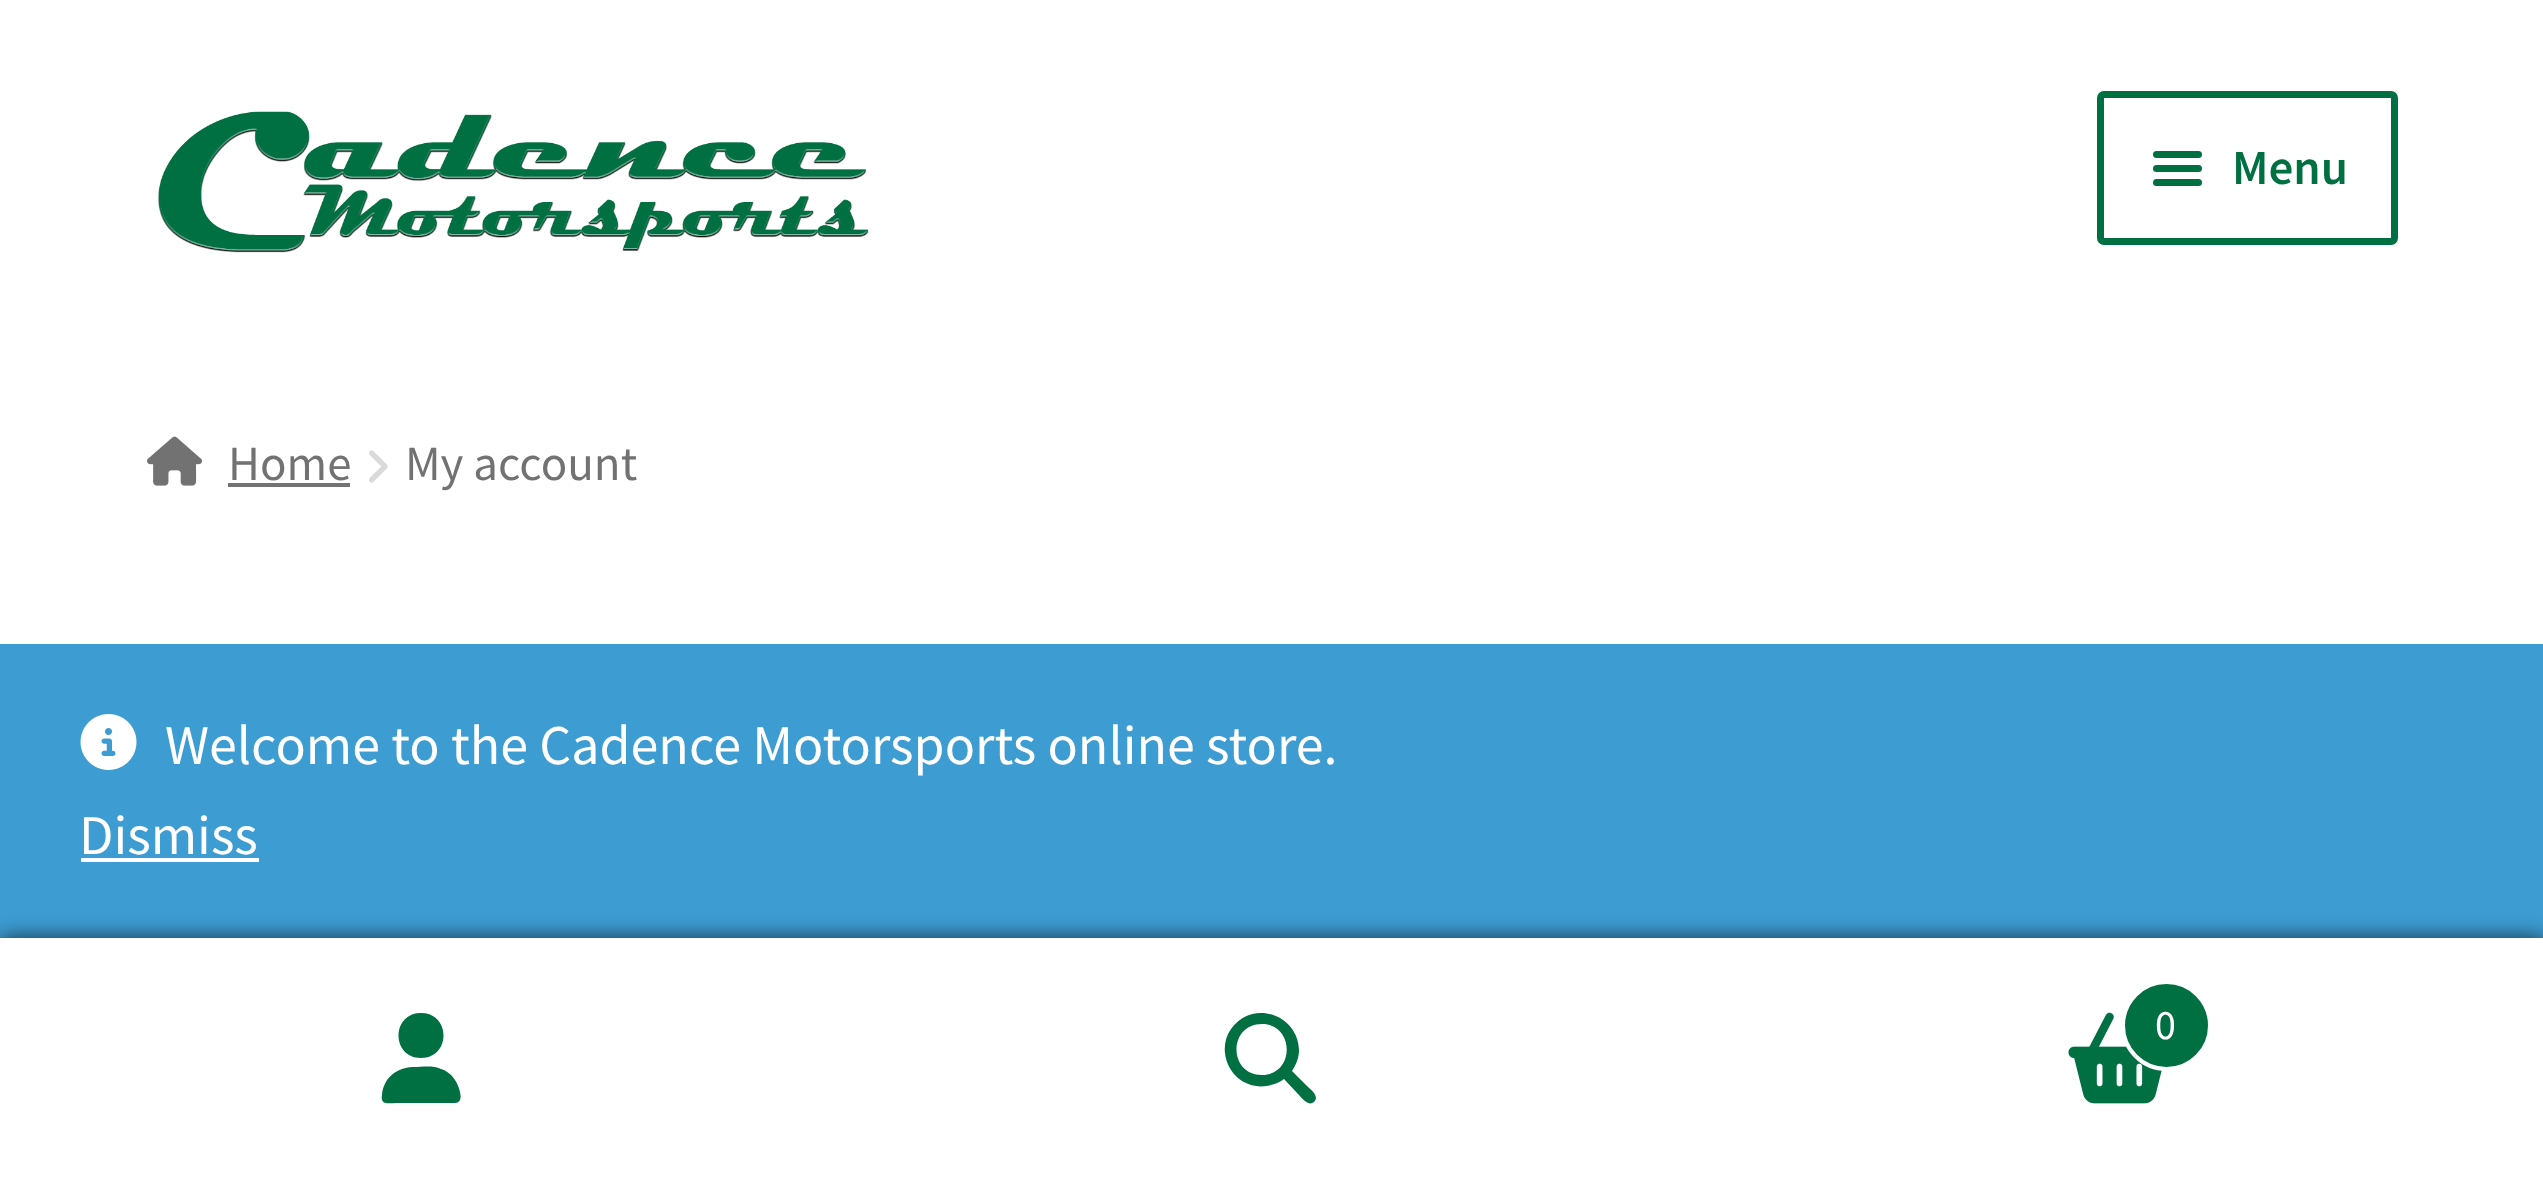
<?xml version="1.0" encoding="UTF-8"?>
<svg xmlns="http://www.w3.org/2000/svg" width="2543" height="1179">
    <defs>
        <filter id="blur1" x="-50%" y="-200%" width="200%" height="500%"><feGaussianBlur stdDeviation="10.5"/></filter>
    </defs>
    <rect width="100%" height="100%" fill="#FFFFFF"/>
    <image x="158" y="111" width="711" height="142" href="img_01.png"/>
    <rect x="2100.5" y="94.5" width="294" height="147" rx="3.5" fill="none" stroke="#007042" stroke-width="7"/>
    <rect x="2153" y="151" width="49" height="7" rx="3.5" fill="#007042"/>
    <rect x="2153" y="165" width="49" height="7" rx="3.5" fill="#007042"/>
    <text x="2232" y="184" font-family="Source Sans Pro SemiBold" font-size="49" font-weight="600" fill="#007042">Menu</text>
    <rect x="2153" y="179" width="49" height="7" rx="3.5" fill="#007042"/>
    <image x="147" y="436" width="56" height="50" href="img_02.png"/>
    <text x="228" y="480" font-family="Source Sans Pro" font-size="49" fill="#727272">Home</text>
    <rect x="228" y="483" width="122" height="4" fill="#727272"/>
    <image x="369" y="450" width="19" height="33" href="img_03.png"/>
    <text x="405" y="480" font-family="Source Sans Pro" font-size="49" fill="#727272">My account</text>
    <rect x="0" y="644" width="2543" height="294" fill="#3D9CD2"/>
    <rect x="0" y="938" width="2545" height="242" fill="#000000" fill-opacity="0.7" filter="url(#blur1)"/>
    <rect x="0" y="938" width="2543" height="4" fill="#FFFFFF"/>
    <rect x="0" y="942" width="2543" height="237" fill="#FFFFFF"/>
    <path d="M 421 1058 C 451 1058 451 1013 421 1013 C 391 1013 391 1058 421 1058 Z M 413 1067 C 403 1067 393 1072 387 1080 C 384 1085 382 1090 382 1095 C 380 1106 389 1103 398 1103 H 455 C 466 1103 458 1084 455 1080 C 452 1075 447 1071 441 1069 C 433 1065 422 1067 413 1067 Z" fill="#007042"/>
    <path d="M 1299 1050 C 1299 1058 1296 1065 1292 1071 L 1307 1086 C 1310 1089 1320 1096 1314 1102 C 1308 1107 1301 1097 1298 1094 L 1284 1079 C 1270 1089 1251 1089 1238 1078 C 1231 1072 1226 1063 1225 1053 C 1224 1045 1226 1036 1231 1029 C 1252 999 1298 1014 1299 1050 Z M 1262 1075 C 1295 1075 1295 1024 1262 1024 C 1228 1024 1228 1075 1262 1075 Z" fill="#007042"/>
    <image x="2068" y="1012" width="94" height="92" href="img_04.png"/>
    <circle cx="2166.5" cy="1025.5" r="43.5" fill="#007042" stroke="#FFFFFF" stroke-width="4"/>
    <text x="2155" y="1039" font-family="Source Sans Pro" font-size="42" fill="#FFFFFF">0</text>
    <image x="80" y="714" width="57" height="56" href="img_05.png"/>
    <text x="165" y="764" font-family="Source Sans Pro" font-size="56" fill="#FFFFFF">Welcome to the Cadence Motorsports online store.</text>
    <text x="79" y="854" font-family="Source Sans Pro" font-size="56" fill="#FFFFFF">Dismiss</text>
    <rect x="81" y="858" width="178" height="4" fill="#FFFFFF"/>
</svg>
